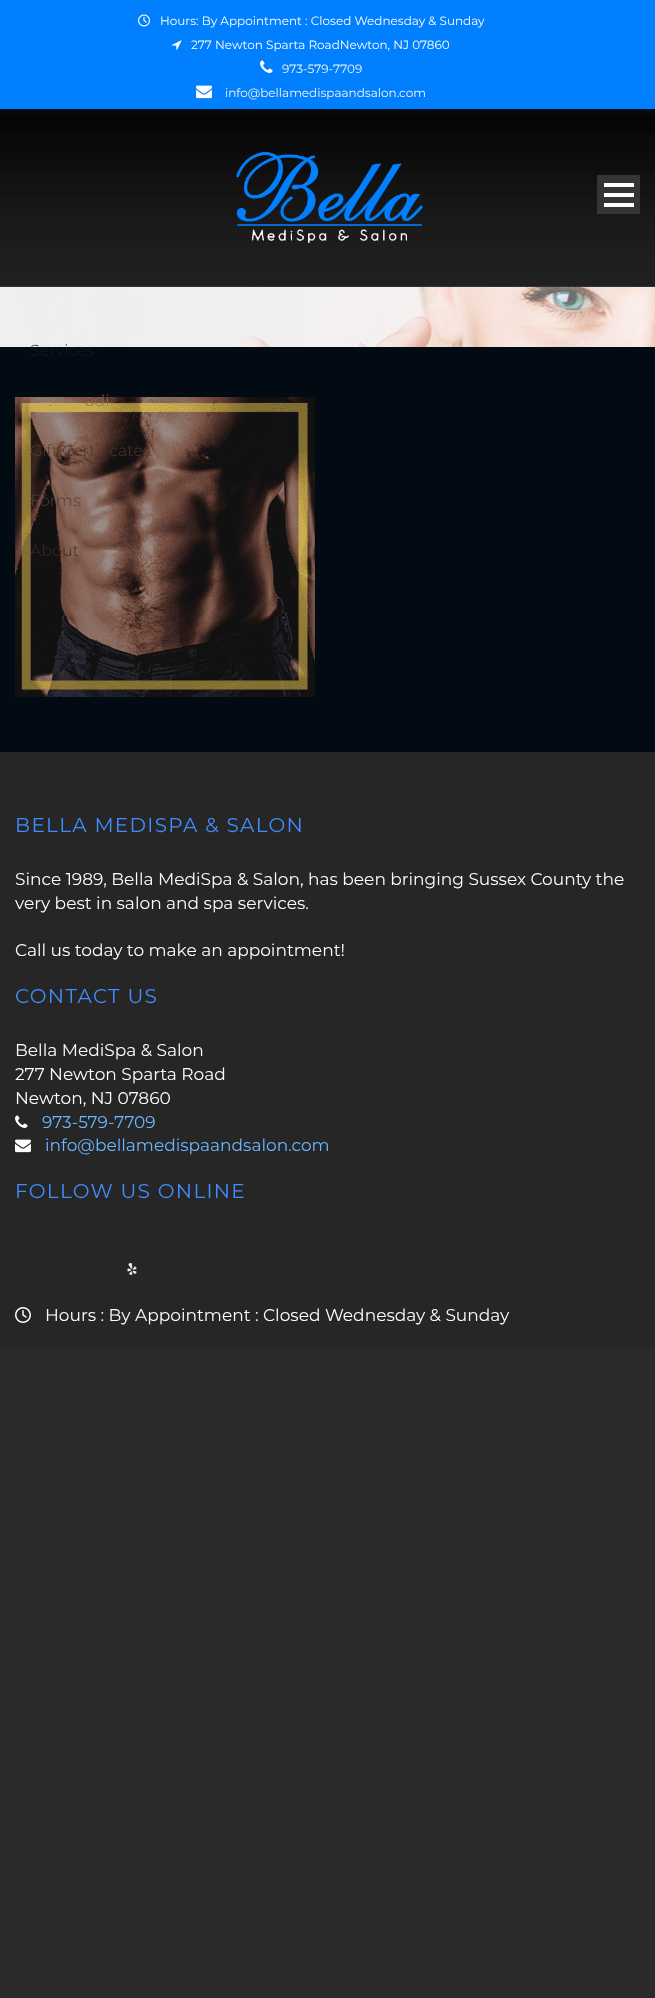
<?xml version="1.0" encoding="UTF-8"?>
<svg xmlns="http://www.w3.org/2000/svg" width="655" height="1998">
    <rect width="100%" height="100%" fill="#2A2A2A"/>
    <rect x="0" y="109" width="655" height="643" fill="#020B13"/>
    <rect x="0" y="0" width="655" height="109" fill="#0080FF"/>
    <image x="138" y="14" width="12" height="13" href="img_01.png"/>
    <text x="160" y="25" font-family="Montserrat" font-size="12" fill="#FFFCFC">Hours: By Appointment : Closed Wednesday &amp; Sunday</text>
    <image x="172" y="40" width="10" height="10" href="img_02.png"/>
    <text x="191" y="49" font-family="Montserrat" font-size="12" fill="#FFFCFC">277 Newton Sparta RoadNewton, NJ 07860</text>
    <image x="260" y="60" width="13" height="13" href="img_03.png"/>
    <text x="282" y="73" font-family="Montserrat" font-size="12" fill="#F3F3F3">973-579-7709</text>
    <image x="196" y="85" width="16" height="14" href="img_04.png"/>
    <text x="225" y="97" font-family="Montserrat" font-size="12" fill="#F3F3F3">info@bellamedispaandsalon.com</text>
    <image x="0" y="114" width="655" height="172" href="img_05.png"/>
    <rect x="0" y="286" width="655" height="1" fill="#333333"/>
    <image x="236" y="151" width="187" height="92" href="img_06.png"/>
    <rect x="597" y="175" width="43" height="39" fill="#353535"/>
    <rect x="604" y="203" width="30" height="4" fill="#FFFFFF"/>
    <rect x="604" y="193" width="30" height="4" fill="#FFFFFF"/>
    <rect x="604" y="183" width="30" height="4" fill="#FFFFFF"/>
    <image x="0" y="287" width="655" height="60" href="img_07.png"/>
    <text x="30" y="356" font-family="Montserrat" font-size="16" font-weight="300" fill="#141C23">Services</text>
    <image x="15" y="397" width="300" height="300" href="img_08.png"/>
    <text x="49" y="406" font-family="Montserrat" font-size="16" font-weight="300" fill="#8A6F4A">.</text>
    <text x="85" y="406" font-family="Montserrat" font-size="16" font-weight="300" fill="#8A6F4A">adi</text>
    <text x="30" y="456" font-family="Montserrat" font-size="16" font-weight="300" fill="#4E3830">Gift Cert</text>
    <text x="109" y="456" font-family="Montserrat" font-size="16" font-weight="300" fill="#4E3830">cates</text>
    <text x="30" y="506" font-family="Montserrat" font-size="16" font-weight="300" fill="#563F37">Forms</text>
    <text x="30" y="556" font-family="Montserrat" font-size="16" font-weight="300" fill="#392B26">About</text>
    <rect x="0" y="752" width="655" height="596" fill="#262626"/>
    <text x="15" y="832" font-family="Montserrat" font-size="20" letter-spacing="1.3" fill="#418DFF">BELLA MEDISPA &amp; SALON</text>
    <text font-family="Montserrat" font-size="17" fill="#FFFCFC">
        <tspan x="15" y="885">Since 1989, Bella MediSpa &amp; Salon, has been bringing Sussex County the</tspan>
        <tspan x="15" y="909">very best in salon and spa services.</tspan>
    </text>
    <text x="15" y="956" font-family="Montserrat" font-size="17" fill="#FFFCFC">Call us today to make an appointment!</text>
    <text x="15" y="1003" font-family="Montserrat" font-size="20" letter-spacing="1.3" fill="#418DFF">CONTACT US</text>
    <text font-family="Montserrat" font-size="17" fill="#FFFCFC">
        <tspan x="15" y="1056">Bella MediSpa &amp; Salon</tspan>
        <tspan x="15" y="1080">277 Newton Sparta Road</tspan>
        <tspan x="15" y="1104">Newton, NJ 07860</tspan>
    </text>
    <image x="15" y="1115" width="13" height="13" href="img_09.png"/>
    <text x="42" y="1128" font-family="Montserrat" font-size="17" fill="#6BB7FF">973-579-7709</text>
    <image x="15" y="1139" width="16" height="14" href="img_10.png"/>
    <text x="45" y="1151" font-family="Montserrat" font-size="17" fill="#6BB7FF">info@bellamedispaandsalon.com</text>
    <text x="15" y="1198" font-family="Montserrat" font-size="20" letter-spacing="1.3" fill="#418DFF">FOLLOW US ONLINE</text>
    <image x="127" y="1263" width="10" height="12" href="img_11.png"/>
    <image x="15" y="1307" width="16" height="16" href="img_12.png"/>
    <text x="45" y="1321" font-family="Montserrat" font-size="17" fill="#FFFCFC">Hours : By Appointment : Closed Wednesday &amp; Sunday</text>
</svg>
